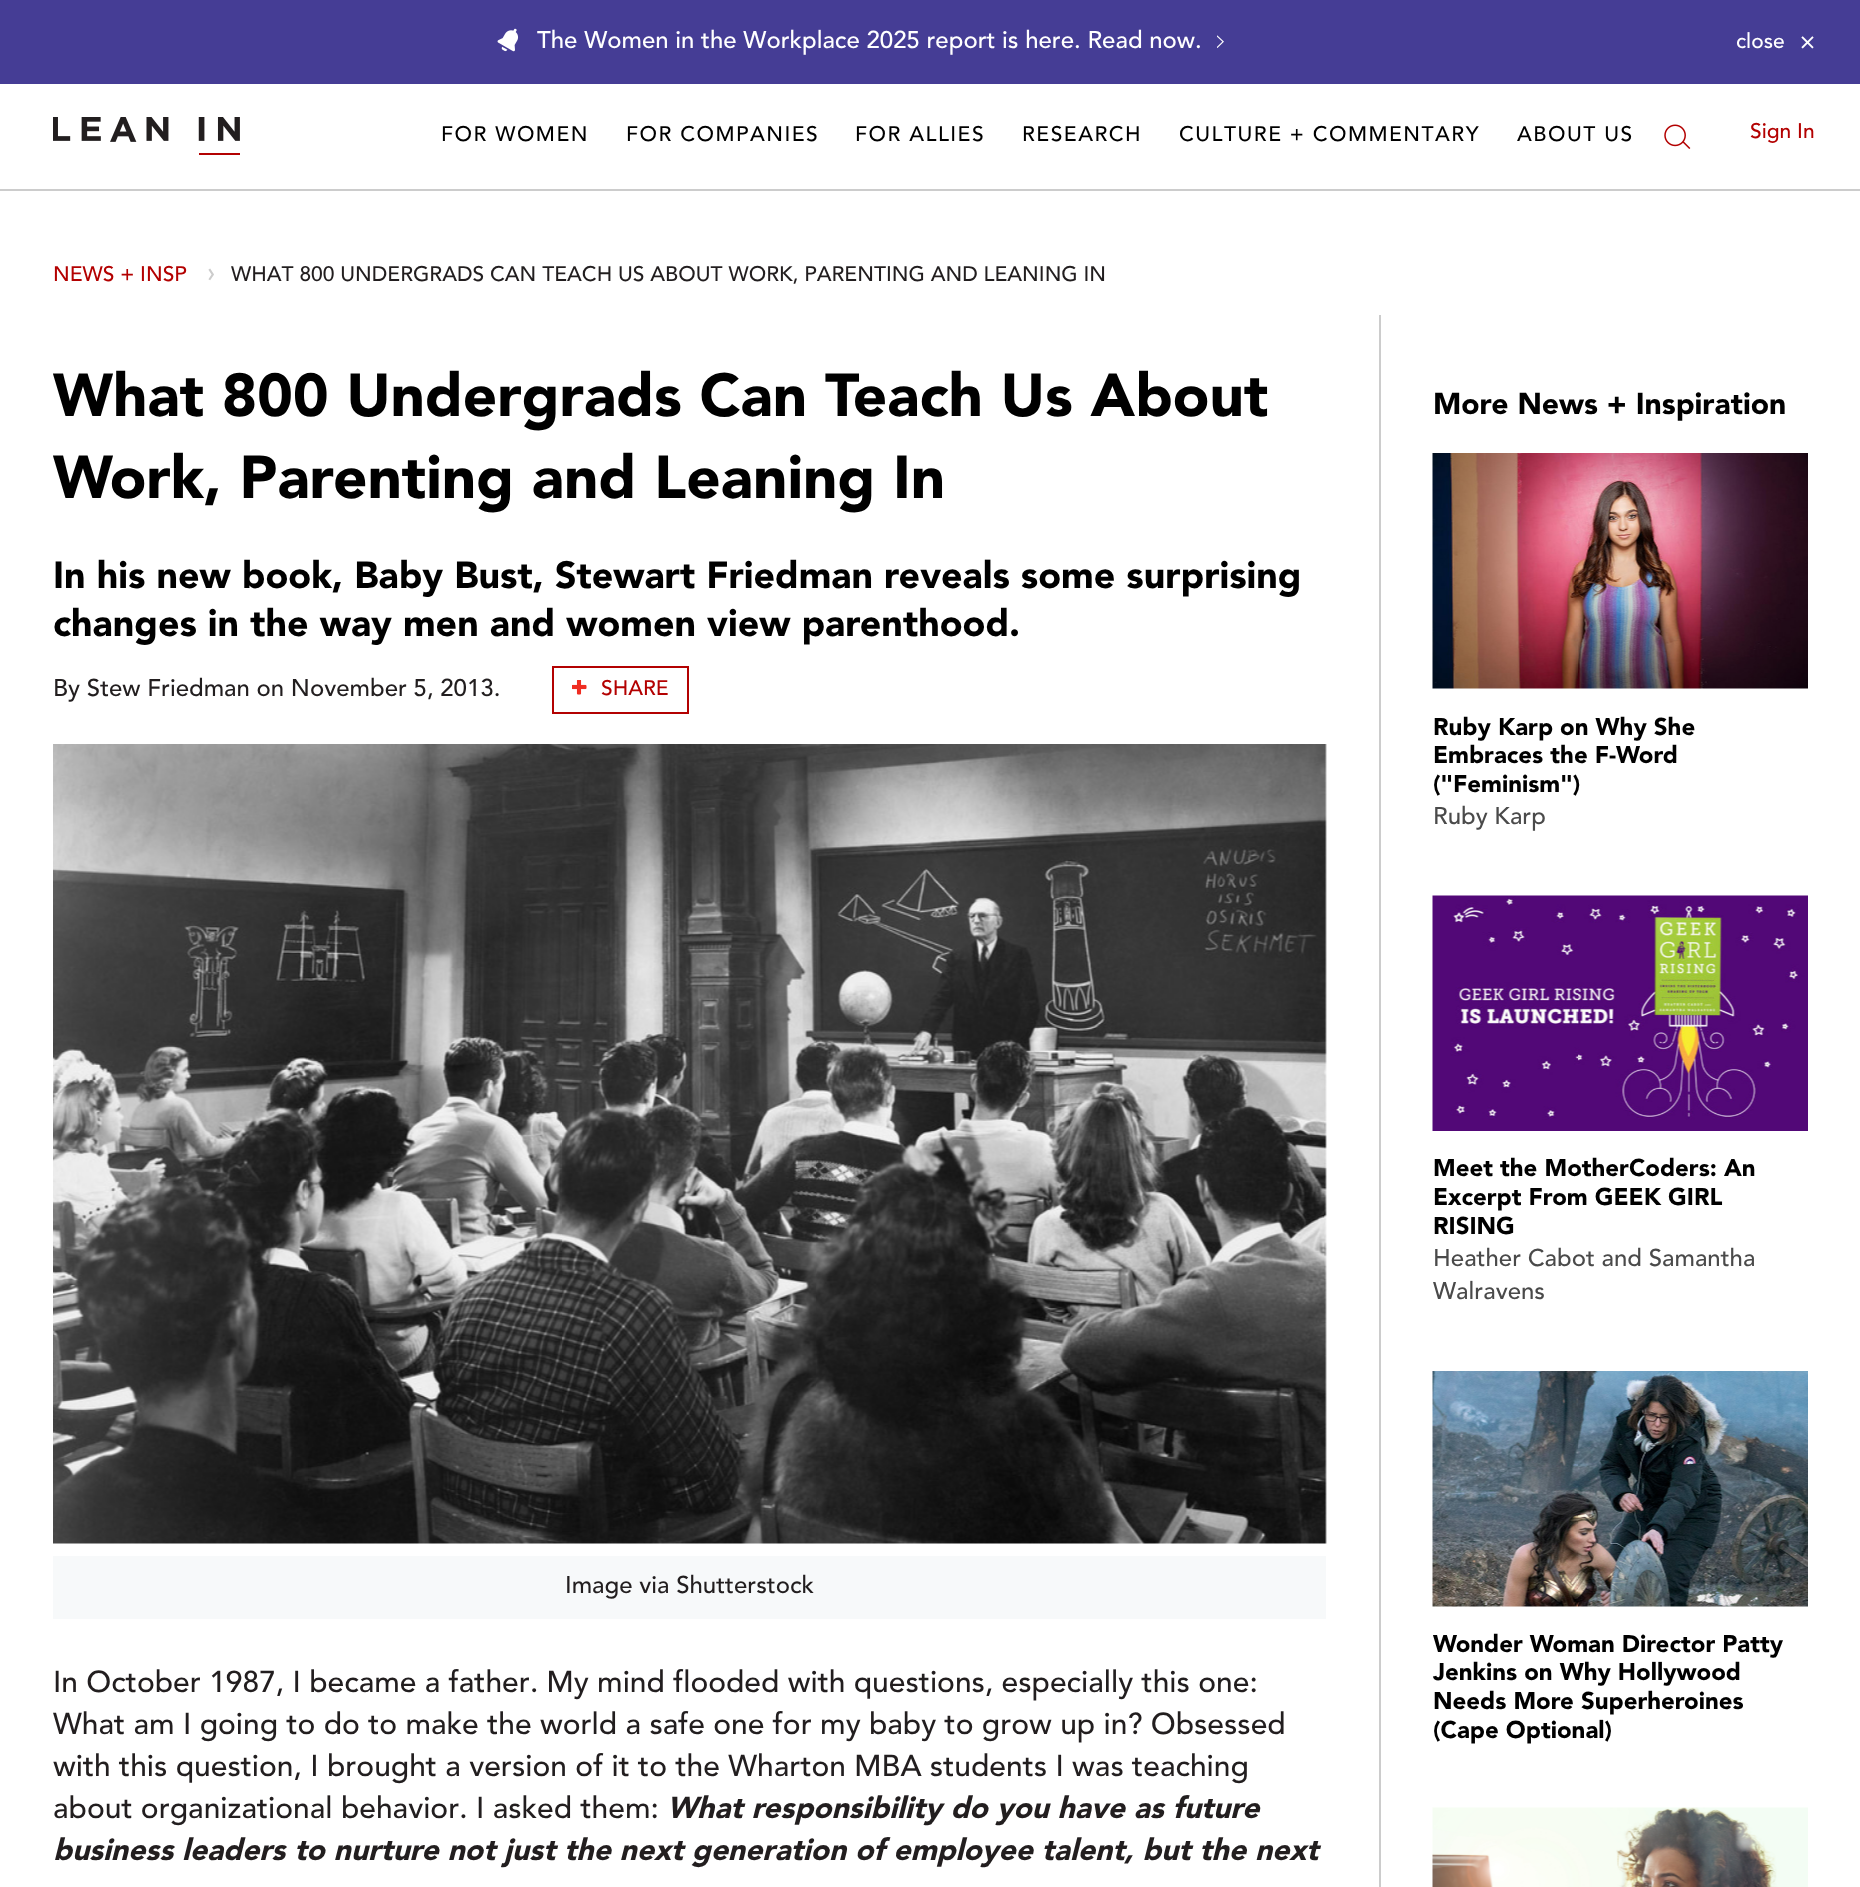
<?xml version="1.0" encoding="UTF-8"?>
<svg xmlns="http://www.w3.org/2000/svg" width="1860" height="1887">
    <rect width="100%" height="100%" fill="#FFFFFF"/>
    <rect x="0" y="0" width="1860" height="84" fill="#453D95"/>
    <image x="497" y="28" width="22" height="24" href="img_01.png"/>
    <text x="537" y="48" font-family="Avenir" font-size="24" fill="#FFFFFF">The Women in the Workplace 2025 report is here. Read now.</text>
    <image x="1217" y="35" width="7" height="13" href="img_02.png"/>
    <text x="1736" y="48" font-family="Avenir" font-size="21" fill="#FFFFFF">close</text>
    <image x="1801" y="36" width="13" height="13" href="img_03.png"/>
    <image x="53" y="117" width="187" height="38" href="img_04.png"/>
    <text x="441" y="141" font-family="Avenir" font-size="21" letter-spacing="1.5" fill="#000000">FOR WOMEN</text>
    <text x="626" y="141" font-family="Avenir" font-size="21" letter-spacing="1.5" fill="#000000">FOR COMPANIES</text>
    <text x="855" y="141" font-family="Avenir" font-size="21" letter-spacing="1.5" fill="#000000">FOR ALLIES</text>
    <text x="1022" y="141" font-family="Avenir" font-size="21" letter-spacing="1.5" fill="#000000">RESEARCH</text>
    <text x="1179" y="141" font-family="Avenir" font-size="21" letter-spacing="1.5" fill="#000000">CULTURE + COMMENTARY</text>
    <text x="1517" y="141" font-family="Avenir" font-size="21" letter-spacing="1.5" fill="#000000">ABOUT US</text>
    <image x="1664" y="124" width="27" height="25" href="img_05.png"/>
    <text x="1750" y="138" font-family="Avenir" font-size="21" fill="#B30101">Sign In</text>
    <rect x="0" y="189" width="1860" height="2" fill="#CCCCCC"/>
    <text x="53" y="281" font-family="Avenir" font-size="21" fill="#B30101">NEWS + INSP</text>
    <text x="207" y="281" font-family="Avenir" font-size="27" fill="#CCCCCC">›</text>
    <text x="231" y="281" font-family="Avenir" font-size="21" fill="#221E1F">WHAT 800 UNDERGRADS CAN TEACH US ABOUT WORK, PARENTING AND LEANING IN</text>
    <rect x="1379" y="315" width="2" height="1572" fill="#CCCCCC"/>
    <text font-family="Avenir" font-size="60" font-weight="900" fill="#000000">
        <tspan x="53" y="416">What 800 Undergrads Can Teach Us About</tspan>
        <tspan x="53" y="498">Work, Parenting and Leaning In</tspan>
    </text>
    <text font-family="Avenir" font-size="37.5" font-weight="900" fill="#000000">
        <tspan x="53" y="588">In his new book, Baby Bust, Stewart Friedman reveals some surprising</tspan>
        <tspan x="53" y="636">changes in the way men and women view parenthood.</tspan>
    </text>
    <text x="53" y="696" font-family="Avenir" font-size="24" fill="#221E1F">By Stew Friedman on November 5, 2013.</text>
    <rect x="553" y="667" width="135" height="46" fill="none" stroke="#B30101" stroke-width="2"/>
    <image x="572" y="680" width="15" height="15" href="img_06.png"/>
    <text x="601" y="695" font-family="Avenir" font-size="21" fill="#B30101">SHARE</text>
    <image x="53" y="744" width="1274" height="800" href="img_07.png"/>
    <rect x="53" y="1556" width="1273" height="63" fill="#F7F9FA"/>
    <text x="565" y="1593" font-family="Avenir" font-size="24" fill="#221E1F">Image via Shutterstock</text>
    <text font-family="Avenir" font-size="30" fill="#221E1F">
        <tspan x="53" y="1692">In October 1987, I became a father. My mind flooded with questions, especially this one:</tspan>
        <tspan x="53" y="1734">What am I going to do to make the world a safe one for my baby to grow up in? Obsessed</tspan>
        <tspan x="53" y="1776">with this question, I brought a version of it to the Wharton MBA students I was teaching</tspan>
        <tspan x="53" y="1818">about organizational behavior. I asked them:</tspan>
    </text>
    <text x="667" y="1818" font-family="Avenir" font-size="30" font-weight="900" font-style="italic" fill="#221E1F">What responsibility do you have as future</text>
    <text x="53" y="1860" font-family="Avenir" font-size="30" font-weight="900" font-style="italic" fill="#221E1F">business leaders to nurture not just the next generation of employee talent, but the next</text>
    <text x="1433" y="414" font-family="Avenir" font-size="30" font-weight="900" fill="#000000">More News + Inspiration</text>
    <image x="1432" y="453" width="376" height="236" href="img_08.png"/>
    <text font-family="Avenir" font-size="24" font-weight="900" fill="#000000">
        <tspan x="1433" y="735">Ruby Karp on Why She</tspan>
        <tspan x="1433" y="763">Embraces the F-Word</tspan>
        <tspan x="1433" y="792">("Feminism")</tspan>
    </text>
    <text x="1433" y="824" font-family="Avenir" font-size="24" fill="#4A4A4A">Ruby Karp</text>
    <image x="1432" y="895" width="376" height="236" href="img_09.png"/>
    <text font-family="Avenir" font-size="24" font-weight="900" fill="#000000">
        <tspan x="1433" y="1176">Meet the MotherCoders: An</tspan>
        <tspan x="1433" y="1205">Excerpt From GEEK GIRL</tspan>
        <tspan x="1433" y="1234">RISING</tspan>
    </text>
    <text font-family="Avenir" font-size="24" fill="#4A4A4A">
        <tspan x="1433" y="1266">Heather Cabot and Samantha</tspan>
        <tspan x="1433" y="1299">Walravens</tspan>
    </text>
    <image x="1432" y="1371" width="376" height="236" href="img_10.png"/>
    <text font-family="Avenir" font-size="24" font-weight="900" fill="#000000">
        <tspan x="1433" y="1652">Wonder Woman Director Patty</tspan>
        <tspan x="1433" y="1680">Jenkins on Why Hollywood</tspan>
        <tspan x="1433" y="1709">Needs More Superheroines</tspan>
        <tspan x="1433" y="1738">(Cape Optional)</tspan>
    </text>
    <image x="1432" y="1807" width="376" height="80" href="img_11.png"/>
</svg>
